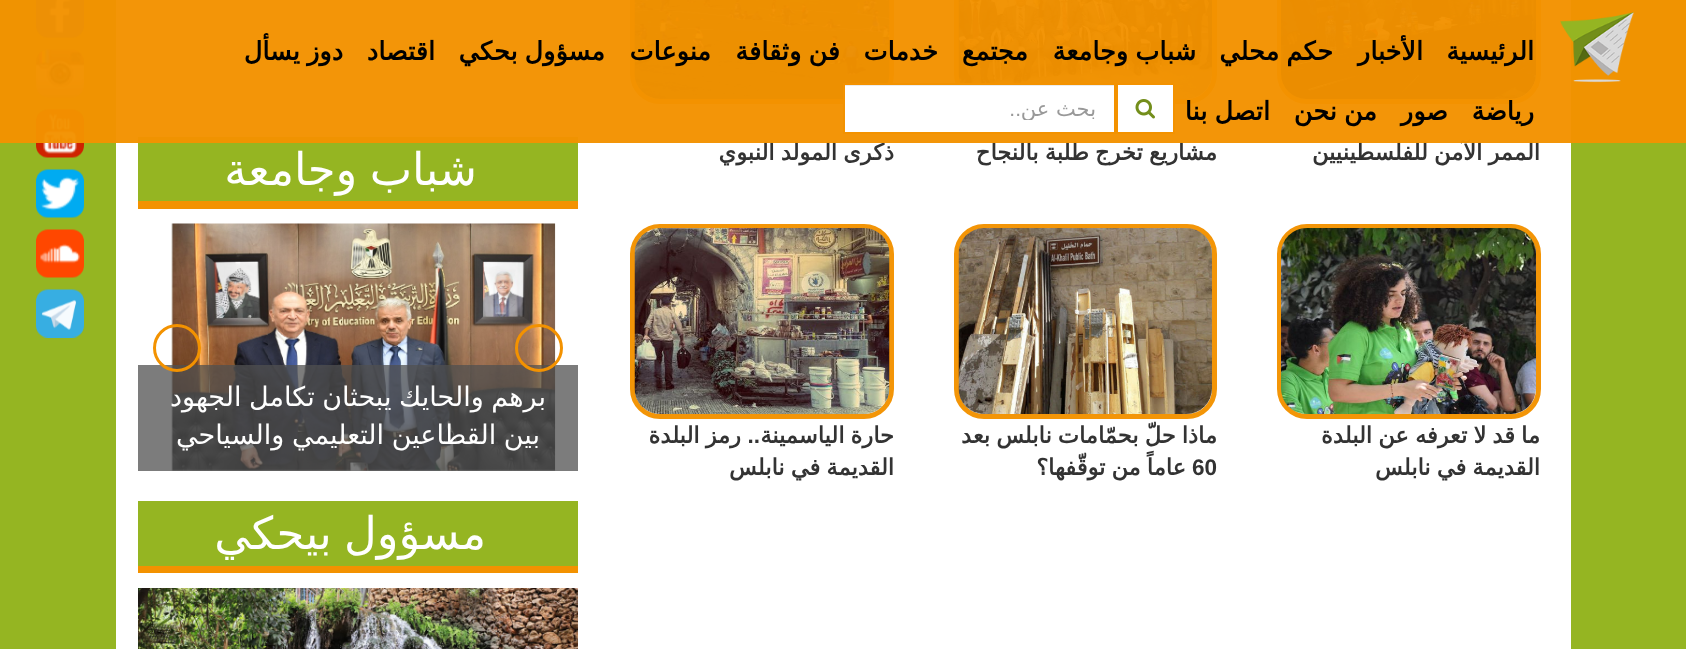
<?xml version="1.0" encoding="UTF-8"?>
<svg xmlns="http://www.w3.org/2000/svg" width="1686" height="649">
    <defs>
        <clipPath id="clip1"><rect x="863" y="96" width="234" height="24"/></clipPath>
    </defs>
    <rect width="100%" height="100%" fill="#95B522"/>
    <image x="36" y="0" width="48" height="38" href="img_03.png"/>
    <image x="36" y="49" width="48" height="49" href="img_04.png"/>
    <image x="36" y="109" width="48" height="49" href="img_05.png"/>
    <rect x="116" y="0" width="1455" height="649" fill="#FFFFFF"/>
    <rect x="1279.5" y="-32.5" width="259" height="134" rx="27.5" fill="none" stroke="#F39507" stroke-width="5"/>
    <image x="1281" y="0" width="255" height="99" href="img_09.png"/>
    <text x="1540" y="160" word-spacing="-1" font-family="DejaVu Sans" font-size="22.5" font-weight="700" direction="rtl" fill="#333333">الممر الآمن للفلسطينيين</text>
    <rect x="956.5" y="-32.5" width="258" height="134" rx="27.5" fill="none" stroke="#F39507" stroke-width="5"/>
    <image x="958" y="0" width="254" height="99" href="img_10.png"/>
    <text x="1217" y="160" word-spacing="-1" font-family="DejaVu Sans" font-size="22.5" font-weight="700" direction="rtl" fill="#333333">مشاريع تخرج طلبة بالنجاح</text>
    <rect x="632.5" y="-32.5" width="259" height="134" rx="27.5" fill="none" stroke="#F39507" stroke-width="5"/>
    <image x="634" y="0" width="256" height="99" href="img_11.png"/>
    <text x="894" y="160" word-spacing="-1" font-family="DejaVu Sans" font-size="22.5" font-weight="700" direction="rtl" fill="#333333">ذكرى المولد النبوي</text>
    <rect x="138" y="137" width="440" height="64" fill="#95B522"/>
    <rect x="0" y="0" width="1686" height="143" fill="#F39200" fill-opacity="0.97"/>
    <image x="1560" y="12" width="74" height="71" href="img_01.png"/>
    <text x="1534" y="60" font-family="DejaVu Sans" font-size="25.5" font-weight="700" direction="rtl" fill="#000000">الرئيسية</text>
    <text x="1423" y="60" font-family="DejaVu Sans" font-size="25.5" font-weight="700" direction="rtl" fill="#000000">الأخبار</text>
    <text x="1333" y="60" word-spacing="-1" font-family="DejaVu Sans" font-size="25.5" font-weight="700" direction="rtl" fill="#000000">حكم محلي</text>
    <text x="1196" y="60" word-spacing="-1" font-family="DejaVu Sans" font-size="25.5" font-weight="700" direction="rtl" fill="#000000">شباب وجامعة</text>
    <text x="1028" y="60" font-family="DejaVu Sans" font-size="25.5" font-weight="700" direction="rtl" fill="#000000">مجتمع</text>
    <text x="938" y="60" font-family="DejaVu Sans" font-size="25.5" font-weight="700" direction="rtl" fill="#000000">خدمات</text>
    <text x="840" y="60" word-spacing="-1" font-family="DejaVu Sans" font-size="25.5" font-weight="700" direction="rtl" fill="#000000">فن وثقافة</text>
    <text x="711" y="60" font-family="DejaVu Sans" font-size="25.5" font-weight="700" direction="rtl" fill="#000000">منوعات</text>
    <text x="605" y="60" word-spacing="-1" font-family="DejaVu Sans" font-size="25.5" font-weight="700" direction="rtl" fill="#000000">مسؤول بحكي</text>
    <text x="435" y="60" font-family="DejaVu Sans" font-size="25.5" font-weight="700" direction="rtl" fill="#000000">اقتصاد</text>
    <text x="343" y="60" word-spacing="-1" font-family="DejaVu Sans" font-size="25.5" font-weight="700" direction="rtl" fill="#000000">دوز يسأل</text>
    <text x="1534" y="120" font-family="DejaVu Sans" font-size="25.5" font-weight="700" direction="rtl" fill="#000000">رياضة</text>
    <text x="1448" y="120" font-family="DejaVu Sans" font-size="25.5" font-weight="700" direction="rtl" fill="#000000">صور</text>
    <text x="1377" y="120" word-spacing="-1" font-family="DejaVu Sans" font-size="25.5" font-weight="700" direction="rtl" fill="#000000">من نحن</text>
    <text x="1270" y="120" word-spacing="-1" font-family="DejaVu Sans" font-size="25.5" font-weight="700" direction="rtl" fill="#000000">اتصل بنا</text>
    <rect x="1117" y="84" width="57" height="49" fill="#FFFFFF" stroke="#F39200" stroke-width="2"/>
    <image x="1135" y="99" width="20" height="20" href="img_02.png"/>
    <rect x="845" y="86" width="269" height="46" fill="#FFFFFF"/>
    <rect x="845" y="85" width="270" height="1" fill="#ECECEC"/>
    <rect x="844" y="84" width="271" height="49" fill="none" stroke="#F39200" stroke-width="2"/>
    <g clip-path="url(#clip1)">
        <text x="1096" y="116" font-family="DejaVu Sans" font-size="21" direction="rtl" fill="#999999">بحث عن</text>
    </g>
    <text x="1021" y="116" font-family="Liberation Sans" font-size="21" direction="rtl" fill="#999999">..</text>
    <image x="36" y="169" width="48" height="49" href="img_06.png"/>
    <image x="36" y="229" width="48" height="49" href="img_07.png"/>
    <image x="36" y="289" width="48" height="49" href="img_08.png"/>
    <rect x="1279.5" y="226.5" width="259" height="190" rx="27.5" fill="none" stroke="#F39507" stroke-width="5"/>
    <image x="1281" y="228" width="255" height="186" href="img_12.png"/>
    <text font-family="DejaVu Sans" font-size="22.5" font-weight="700" direction="rtl" fill="#333333">
        <tspan x="1540" y="443" word-spacing="-1">ما قد لا تعرفه عن البلدة</tspan>
        <tspan x="1540" y="475" word-spacing="-1">القديمة في نابلس</tspan>
    </text>
    <rect x="956.5" y="226.5" width="258" height="190" rx="27.5" fill="none" stroke="#F39507" stroke-width="5"/>
    <image x="958" y="228" width="254" height="186" href="img_13.png"/>
    <text x="1217" y="443" word-spacing="-1" font-family="DejaVu Sans" font-size="22.5" font-weight="700" direction="rtl" fill="#333333">ماذا حلّ بحمّامات نابلس بعد</text>
    <text x="1192" y="475" font-family="Liberation Sans" font-size="22.5" font-weight="700" fill="#333333">60</text>
    <text x="1186" y="475" word-spacing="-1" font-family="DejaVu Sans" font-size="22.5" font-weight="700" direction="rtl" fill="#333333">عاماً من توقّفها؟</text>
    <rect x="632.5" y="226.5" width="259" height="190" rx="27.5" fill="none" stroke="#F39507" stroke-width="5"/>
    <image x="634" y="228" width="256" height="186" href="img_14.png"/>
    <text x="894" y="443" word-spacing="-1" font-family="DejaVu Sans" font-size="22.5" font-weight="700" direction="rtl" fill="#333333">حارة الياسمينة</text>
    <text x="760" y="443" font-family="Liberation Sans" font-size="22.5" font-weight="700" direction="rtl" fill="#333333">..</text>
    <text x="741" y="443" word-spacing="-1" font-family="DejaVu Sans" font-size="22.5" font-weight="700" direction="rtl" fill="#333333">رمز البلدة</text>
    <text x="894" y="475" word-spacing="-1" font-family="DejaVu Sans" font-size="22.5" font-weight="700" direction="rtl" fill="#333333">القديمة في نابلس</text>
    <rect x="138" y="201" width="440" height="8" fill="#F39200"/>
    <text x="477" y="185" word-spacing="-2" font-family="DejaVu Sans" font-size="45" direction="rtl" fill="#FFFFFF">شباب وجامعة</text>
    <image x="171" y="223" width="385" height="248" href="img_15.png"/>
    <rect x="138" y="365" width="440" height="106" fill="#505050" fill-opacity="0.75"/>
    <circle cx="539" cy="348" r="22.5" fill="none" stroke="#F39200" stroke-width="3"/>
    <circle cx="177" cy="348" r="22.5" fill="none" stroke="#F39200" stroke-width="3"/>
    <text x="546" y="406" word-spacing="-1" font-family="DejaVu Sans" font-size="27" direction="rtl" fill="#FFFFFF">برهم والحايك يبحثان تكامل الجهود</text>
    <text x="540" y="444" word-spacing="-1" font-family="DejaVu Sans" font-size="27" direction="rtl" fill="#FFFFFF">بين القطاعين التعليمي والسياحي</text>
    <rect x="138" y="501" width="440" height="65" fill="#95B522"/>
    <rect x="138" y="566" width="440" height="7" fill="#F39200"/>
    <text x="486" y="549" word-spacing="-2" font-family="DejaVu Sans" font-size="45" direction="rtl" fill="#FFFFFF">مسؤول بيحكي</text>
    <image x="138" y="588" width="440" height="61" href="img_16.png"/>
</svg>
